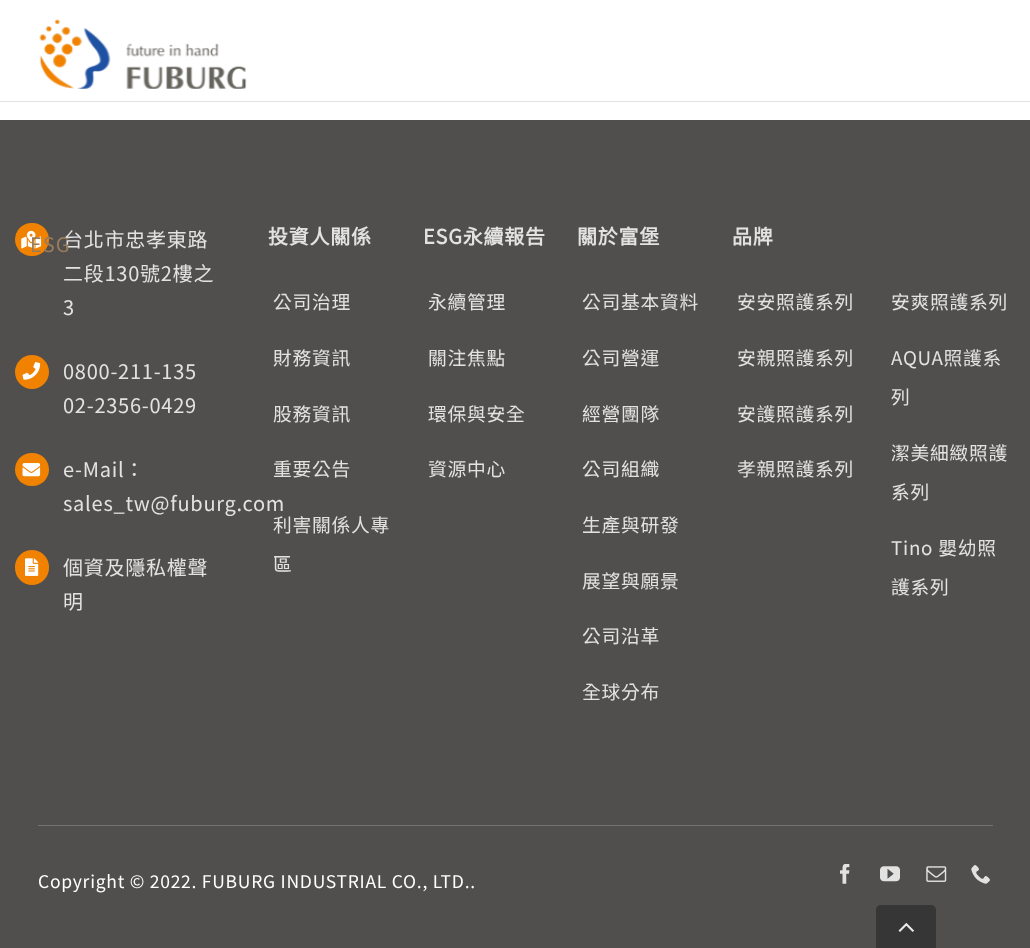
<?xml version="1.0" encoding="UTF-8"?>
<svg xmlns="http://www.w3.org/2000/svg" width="1030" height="948">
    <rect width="100%" height="100%" fill="#FFFFFF"/>
    <rect x="0" y="120" width="1030" height="828" fill="#504F4D"/>
    <rect x="15" y="223" width="34" height="33" rx="16.5" fill="#F08200"/>
    <image x="21" y="230" width="21" height="19" href="img_01.png"/>
    <text font-family="Noto Sans TC" font-size="20" font-weight="100" letter-spacing="0.75" fill="#E2E2E2">
        <tspan x="63" y="247">台北市忠孝東路</tspan>
        <tspan x="63" y="281">二段130號2樓之</tspan>
        <tspan x="63" y="315">3</tspan>
    </text>
    <circle cx="32" cy="372" r="17" fill="#F08200"/>
    <image x="22" y="362" width="19" height="18" href="img_02.png"/>
    <text font-family="Noto Sans TC" font-size="20" font-weight="100" letter-spacing="0.75" fill="#E2E2E2">
        <tspan x="63" y="379">0800-211-135</tspan>
        <tspan x="63" y="413">02-2356-0429</tspan>
    </text>
    <rect x="15" y="453" width="34" height="33" rx="16.5" fill="#F08200"/>
    <image x="22" y="463" width="19" height="14" href="img_03.png"/>
    <text font-family="Noto Sans TC" font-size="20" font-weight="100" letter-spacing="0.75" fill="#E2E2E2">
        <tspan x="63" y="477">e-Mail：</tspan>
        <tspan x="63" y="511">sales_tw@fuburg.com</tspan>
    </text>
    <rect x="15" y="550" width="34" height="35" rx="17" fill="#F08200"/>
    <image x="25" y="558" width="14" height="18" href="img_04.png"/>
    <text font-family="Noto Sans TC" font-size="20" font-weight="100" letter-spacing="0.75" fill="#E2E2E2">
        <tspan x="63" y="575">個資及隱私權聲</tspan>
        <tspan x="63" y="609">明</tspan>
    </text>
    <text x="268" y="244" font-family="Noto Sans TC" font-size="20" font-weight="700" letter-spacing="0.75" fill="#E2E2E2">投資人關係</text>
    <text x="273" y="309" font-family="Noto Sans TC" font-size="18.75" font-weight="100" letter-spacing="0.75" fill="#E2E2E2">公司治理</text>
    <text x="273" y="365" font-family="Noto Sans TC" font-size="18.75" font-weight="100" letter-spacing="0.75" fill="#E2E2E2">財務資訊</text>
    <text x="273" y="421" font-family="Noto Sans TC" font-size="18.75" font-weight="100" letter-spacing="0.75" fill="#E2E2E2">股務資訊</text>
    <text x="273" y="476" font-family="Noto Sans TC" font-size="18.75" font-weight="100" letter-spacing="0.75" fill="#E2E2E2">重要公告</text>
    <text x="273" y="532" font-family="Noto Sans TC" font-size="18.75" font-weight="100" letter-spacing="0.75" fill="#E2E2E2">利害關係人專</text>
    <text x="273" y="571" font-family="Noto Sans TC" font-size="18.75" font-weight="100" letter-spacing="0.75" fill="#E2E2E2">區</text>
    <text x="423" y="244" font-family="Noto Sans TC" font-size="20" font-weight="700" letter-spacing="0.75" fill="#E2E2E2">ESG永續報告</text>
    <text x="428" y="309" font-family="Noto Sans TC" font-size="18.75" font-weight="100" letter-spacing="0.75" fill="#E2E2E2">永續管理</text>
    <text x="428" y="365" font-family="Noto Sans TC" font-size="18.75" font-weight="100" letter-spacing="0.75" fill="#E2E2E2">關注焦點</text>
    <text x="428" y="421" font-family="Noto Sans TC" font-size="18.75" font-weight="100" letter-spacing="0.75" fill="#E2E2E2">環保與安全</text>
    <text x="428" y="476" font-family="Noto Sans TC" font-size="18.75" font-weight="100" letter-spacing="0.75" fill="#E2E2E2">資源中心</text>
    <text x="577" y="244" font-family="Noto Sans TC" font-size="20" font-weight="700" letter-spacing="0.75" fill="#E2E2E2">關於富堡</text>
    <text x="582" y="309" font-family="Noto Sans TC" font-size="18.75" font-weight="100" letter-spacing="0.75" fill="#E2E2E2">公司基本資料</text>
    <text x="582" y="365" font-family="Noto Sans TC" font-size="18.75" font-weight="100" letter-spacing="0.75" fill="#E2E2E2">公司營運</text>
    <text x="582" y="421" font-family="Noto Sans TC" font-size="18.75" font-weight="100" letter-spacing="0.75" fill="#E2E2E2">經營團隊</text>
    <text x="582" y="476" font-family="Noto Sans TC" font-size="18.75" font-weight="100" letter-spacing="0.75" fill="#E2E2E2">公司組織</text>
    <text x="582" y="532" font-family="Noto Sans TC" font-size="18.75" font-weight="100" letter-spacing="0.75" fill="#E2E2E2">生產與研發</text>
    <text x="582" y="588" font-family="Noto Sans TC" font-size="18.75" font-weight="100" letter-spacing="0.75" fill="#E2E2E2">展望與願景</text>
    <text x="582" y="643" font-family="Noto Sans TC" font-size="18.75" font-weight="100" letter-spacing="0.75" fill="#E2E2E2">公司沿革</text>
    <text x="582" y="699" font-family="Noto Sans TC" font-size="18.75" font-weight="100" letter-spacing="0.75" fill="#E2E2E2">全球分布</text>
    <text x="732" y="244" font-family="Noto Sans TC" font-size="20" font-weight="700" letter-spacing="0.75" fill="#E2E2E2">品牌</text>
    <text x="737" y="309" font-family="Noto Sans TC" font-size="18.75" font-weight="100" letter-spacing="0.75" fill="#E2E2E2">安安照護系列</text>
    <text x="737" y="365" font-family="Noto Sans TC" font-size="18.75" font-weight="100" letter-spacing="0.75" fill="#E2E2E2">安親照護系列</text>
    <text x="737" y="421" font-family="Noto Sans TC" font-size="18.75" font-weight="100" letter-spacing="0.75" fill="#E2E2E2">安護照護系列</text>
    <text x="737" y="476" font-family="Noto Sans TC" font-size="18.75" font-weight="100" letter-spacing="0.75" fill="#E2E2E2">孝親照護系列</text>
    <text x="891" y="309" font-family="Noto Sans TC" font-size="18.75" font-weight="100" letter-spacing="0.75" fill="#E2E2E2">安爽照護系列</text>
    <text x="891" y="365" font-family="Noto Sans TC" font-size="18.75" font-weight="100" letter-spacing="0.75" fill="#E2E2E2">AQUA照護系</text>
    <text x="891" y="404" font-family="Noto Sans TC" font-size="18.75" font-weight="100" letter-spacing="0.75" fill="#E2E2E2">列</text>
    <text x="891" y="460" font-family="Noto Sans TC" font-size="18.75" font-weight="100" letter-spacing="0.75" fill="#E2E2E2">潔美細緻照護</text>
    <text x="891" y="499" font-family="Noto Sans TC" font-size="18.75" font-weight="100" letter-spacing="0.75" fill="#E2E2E2">系列</text>
    <text x="891" y="555" font-family="Noto Sans TC" font-size="18.75" font-weight="100" letter-spacing="0.75" fill="#E2E2E2">Tino 嬰幼照</text>
    <text x="891" y="594" font-family="Noto Sans TC" font-size="18.75" font-weight="100" letter-spacing="0.75" fill="#E2E2E2">護系列</text>
    <rect x="38" y="825" width="955" height="1" fill="#737271"/>
    <text x="38" y="888" font-family="Noto Sans TC" font-size="17.5" font-weight="100" letter-spacing="0.75" fill="#FFFFFF">Copyright © 2022. FUBURG INDUSTRIAL CO., LTD..</text>
    <image x="840" y="864" width="10" height="20" href="img_05.png"/>
    <image x="880" y="866" width="20" height="16" href="img_06.png"/>
    <image x="926" y="866" width="21" height="16" href="img_07.png"/>
    <image x="971" y="865" width="19" height="19" href="img_08.png"/>
    <rect x="0" y="101" width="1030" height="1" fill="#E2E2E2"/>
    <image x="39" y="19" width="208" height="70" href="img_09.png"/>
    <text x="30" y="252" font-family="Noto Sans TC" font-size="20" font-weight="100" letter-spacing="1" fill="#997D5B">ESG</text>
    <path d="M 881 905 H 931 C 934 905 936 907 936 910 V 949 H 876 V 910 C 876 907 878 905 881 905 Z" fill="#363636"/>
    <image x="898" y="923" width="16" height="9" href="img_10.png"/>
</svg>
